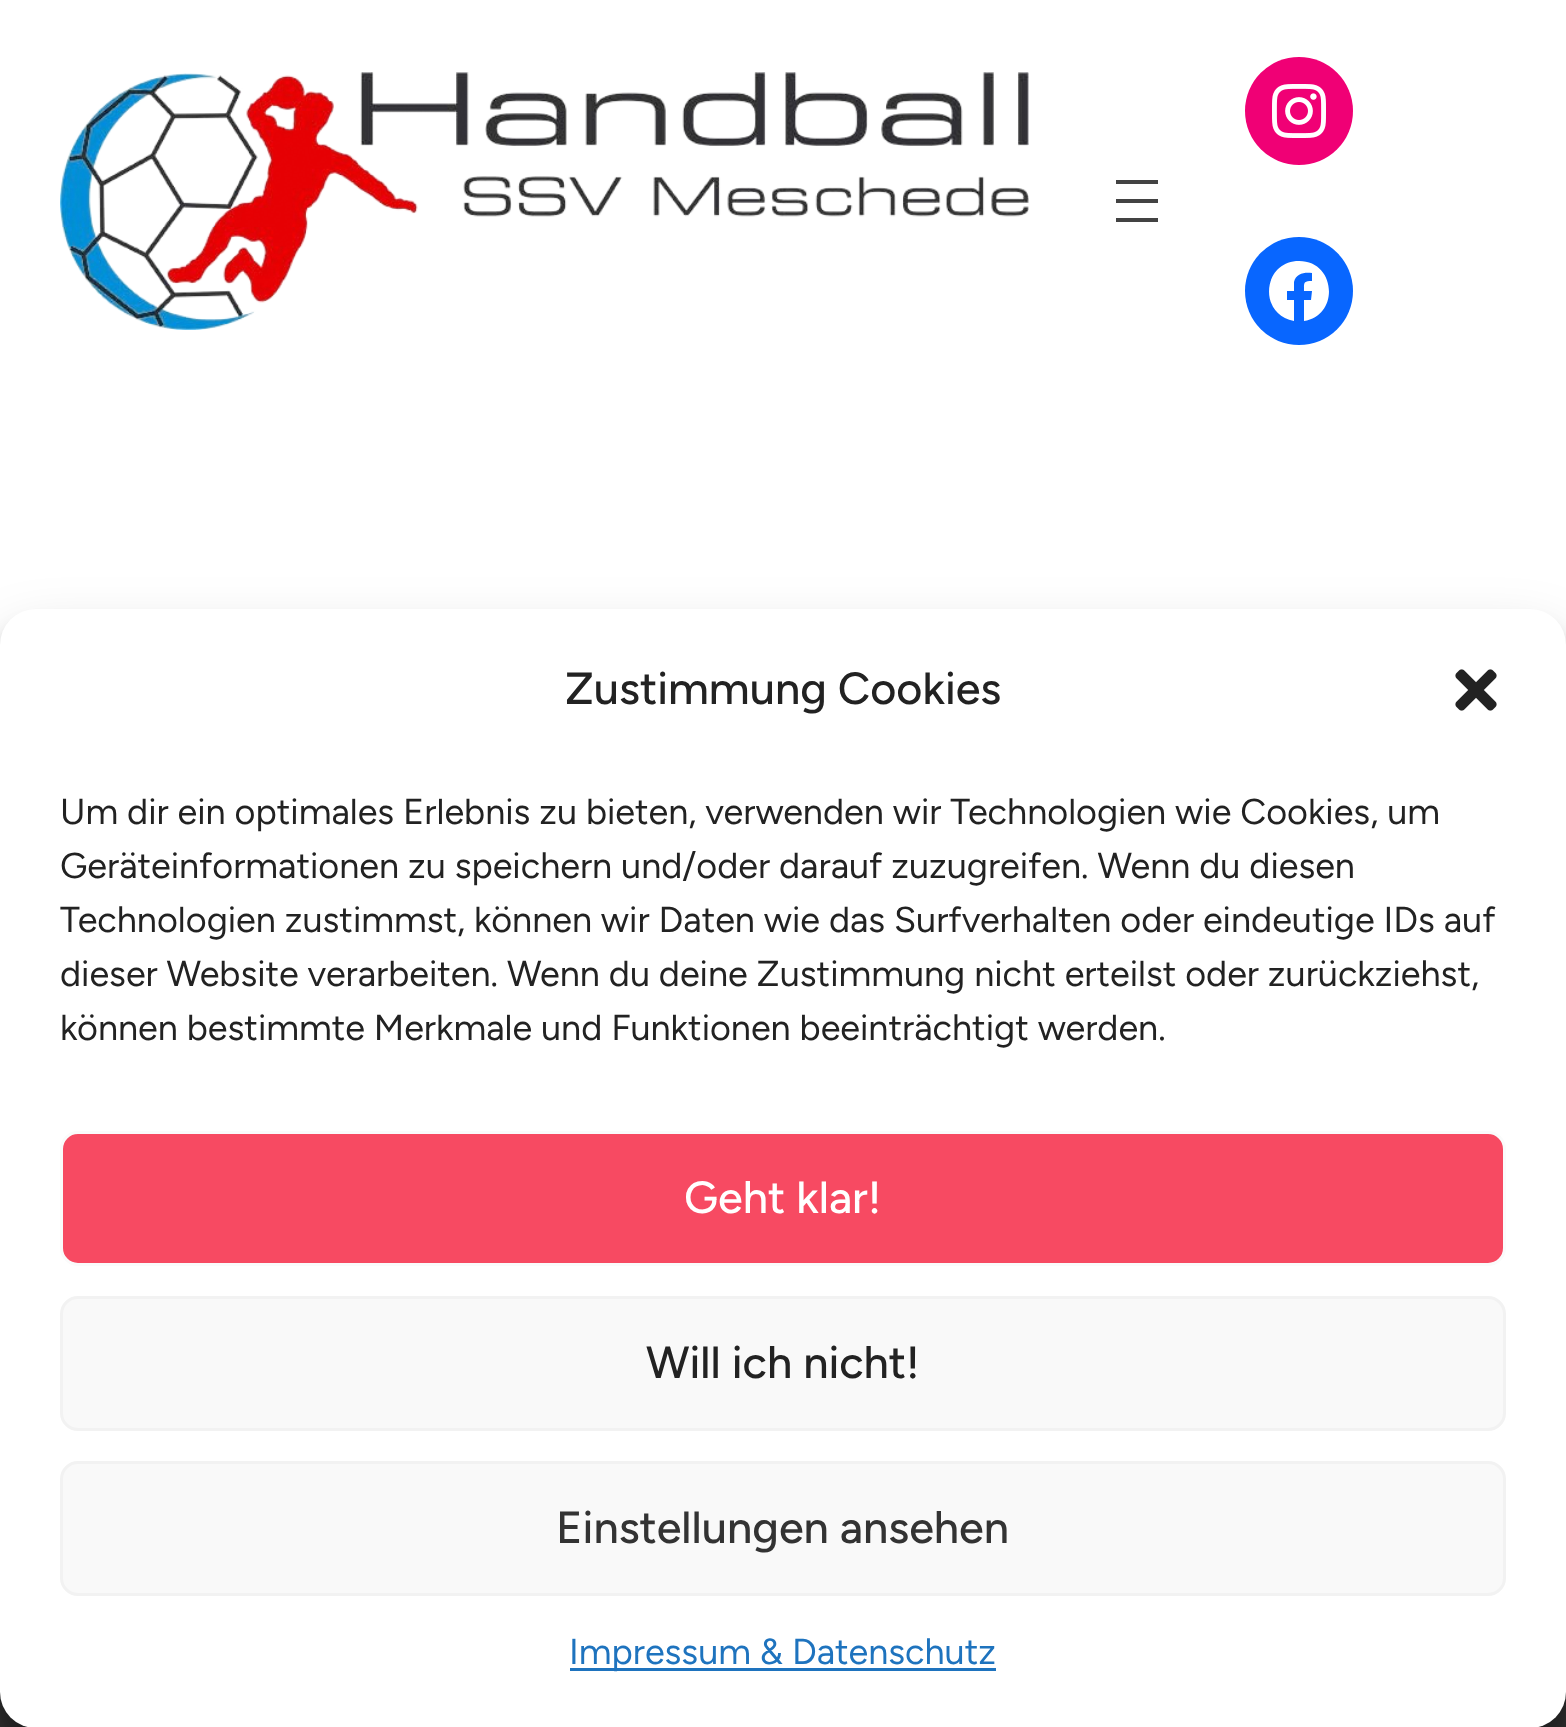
<?xml version="1.0" encoding="UTF-8"?>
<svg xmlns="http://www.w3.org/2000/svg" width="1566" height="1727">
    <defs>
        <filter id="blur1" x="-50%" y="-200%" width="200%" height="500%"><feGaussianBlur stdDeviation="9"/></filter>
        <filter id="blur2" x="-50%" y="-200%" width="200%" height="500%"><feGaussianBlur stdDeviation="30"/></filter>
    </defs>
    <rect width="100%" height="100%" fill="#FFFFFF"/>
    <image x="60" y="72" width="969" height="258" href="img_01.png"/>
    <rect x="1116" y="180" width="42" height="4" fill="#434343"/>
    <rect x="1116" y="199" width="42" height="4" fill="#434343"/>
    <rect x="1116" y="218" width="42" height="4" fill="#434343"/>
    <circle cx="1299" cy="111" r="54" fill="#F00075"/>
    <image x="1272" y="84" width="54" height="54" href="img_02.png"/>
    <circle cx="1299" cy="291" r="54" fill="#0866FF"/>
    <path d="M 1299 261 C 1262 261 1258 315 1294 321 V 300 H 1287 V 291 H 1294 V 282 C 1296 273 1305 272 1312 273 V 281 C 1303 281 1304 283 1304 291 H 1312 L 1311 300 H 1304 V 321 C 1340 315 1336 261 1299 261 Z" fill="#FFFFFF"/>
    <rect x="0" y="1692" width="1566" height="35" fill="#2F2F2F"/>
    <rect x="0" y="627" width="1566" height="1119" rx="36" fill="#000000" fill-opacity="0.23" filter="url(#blur1)"/>
    <rect x="0" y="639" width="1566" height="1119" rx="36" fill="#000000" fill-opacity="0.19" filter="url(#blur2)"/>
    <rect x="0" y="609" width="1566" height="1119" rx="36" fill="#FFFFFF"/>
    <text x="565" y="704" font-family="Figtree" font-size="45" font-weight="500" fill="#222222">Zustimmung Cookies</text>
    <image x="1455" y="669" width="42" height="42" href="img_03.png"/>
    <text font-family="Figtree" font-size="36" fill="#222222">
        <tspan x="60" y="824">Um dir ein optimales Erlebnis zu bieten, verwenden wir Technologien wie Cookies, um</tspan>
        <tspan x="60" y="878">Geräteinformationen zu speichern und/oder darauf zuzugreifen. Wenn du diesen</tspan>
        <tspan x="60" y="932">Technologien zustimmst, können wir Daten wie das Surfverhalten oder eindeutige IDs auf</tspan>
        <tspan x="60" y="986">dieser Website verarbeiten. Wenn du deine Zustimmung nicht erteilst oder zurückziehst,</tspan>
        <tspan x="60" y="1040">können bestimmte Merkmale und Funktionen beeinträchtigt werden.</tspan>
    </text>
    <rect x="61.5" y="1132.5" width="1443" height="132" rx="16.5" fill="#F74A62" stroke="#FAFBFB" stroke-width="3"/>
    <text x="684" y="1213" font-family="Figtree" font-size="45" font-weight="500" fill="#FFFFFF">Geht klar!</text>
    <rect x="61.5" y="1297.5" width="1443" height="132" rx="16.5" fill="#F9F9F9" stroke="#F2F2F2" stroke-width="3"/>
    <text x="646" y="1378" font-family="Figtree" font-size="45" font-weight="500" fill="#222222">Will ich nicht!</text>
    <rect x="61.5" y="1462.5" width="1443" height="132" rx="16.5" fill="#F9F9F9" stroke="#F2F2F2" stroke-width="3"/>
    <text x="556" y="1543" font-family="Figtree" font-size="45" font-weight="500" fill="#333333">Einstellungen ansehen</text>
    <rect x="570" y="1668" width="426" height="3" fill="#1E73BE"/>
    <text x="569" y="1664" font-family="Figtree" font-size="36" fill="#1E73BE">Impressum &amp; Datenschutz</text>
</svg>
